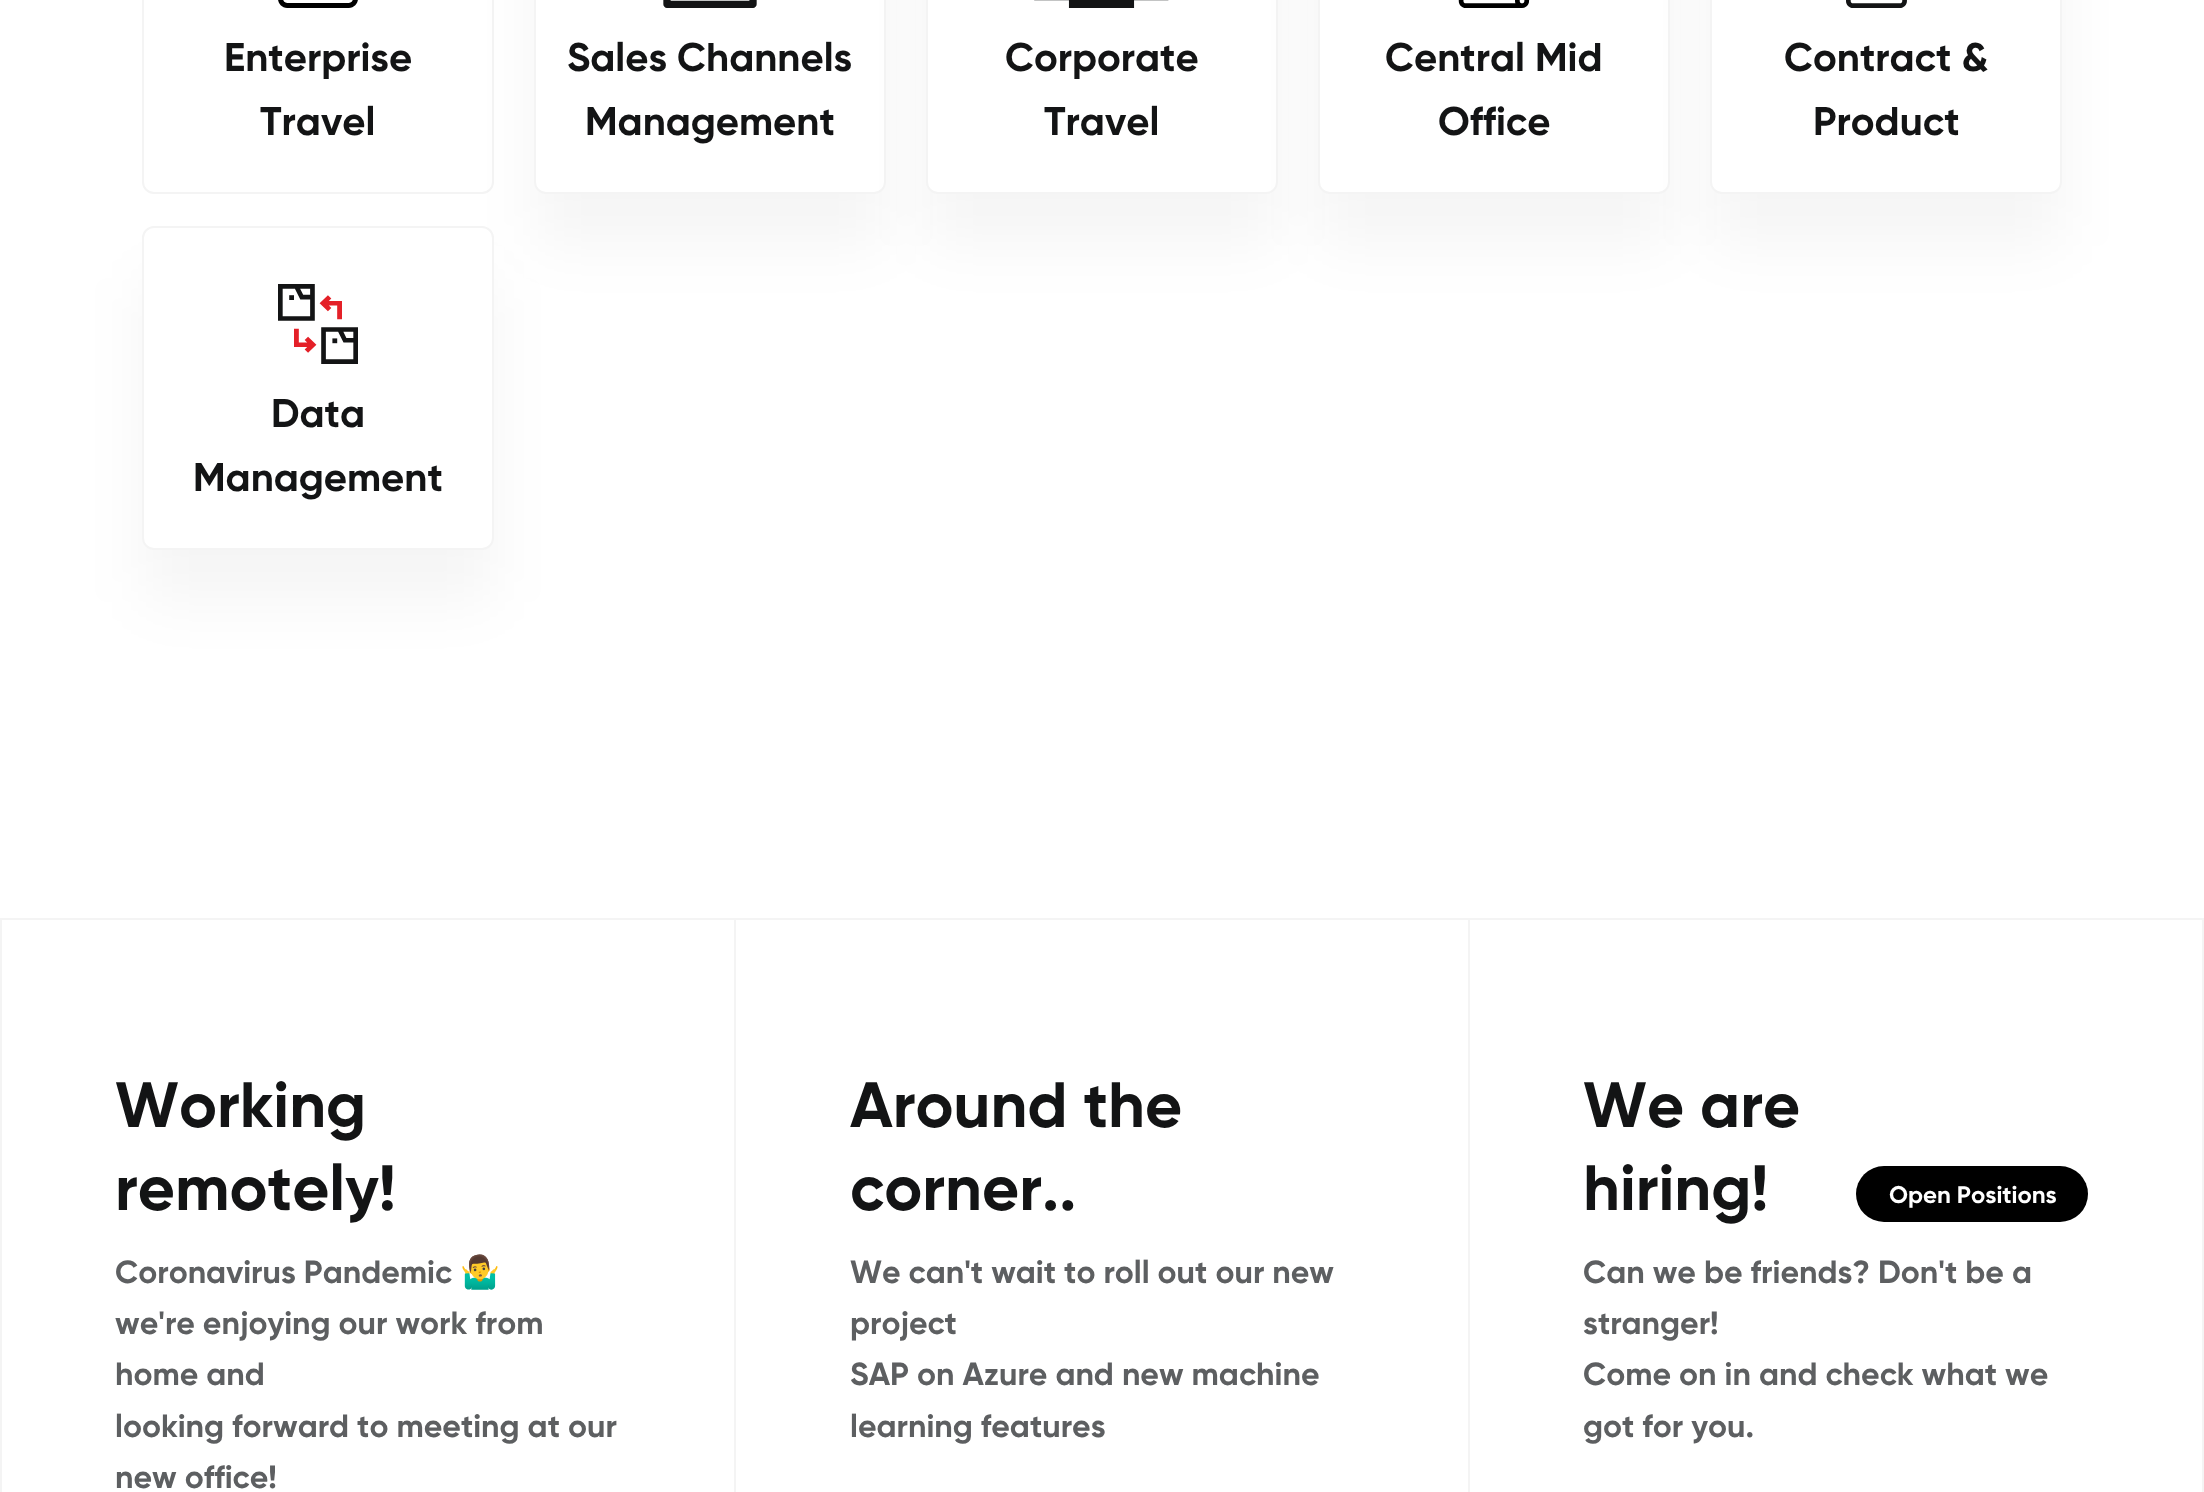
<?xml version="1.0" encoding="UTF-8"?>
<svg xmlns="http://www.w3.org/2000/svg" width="2204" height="1492">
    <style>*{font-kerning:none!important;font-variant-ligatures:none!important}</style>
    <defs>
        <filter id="blur1" x="-50%" y="-200%" width="200%" height="500%"><feGaussianBlur stdDeviation="30"/></filter>
    </defs>
    <rect width="100%" height="100%" fill="#FFFFFF"/>
    <rect x="143" y="-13" width="350" height="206" rx="11" fill="none" stroke="#F4F4F4" stroke-width="2"/>
    <image x="278" y="0" width="80" height="8" href="img_01.png"/>
    <text x="224" y="71" font-family="Gilroy" font-size="40" font-weight="700" fill="#131415">Enterprise</text>
    <text x="260" y="135" font-family="Gilroy" font-size="40" font-weight="700" fill="#131415">Travel</text>
    <rect x="534" y="-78" width="352" height="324" rx="12" fill="#000000" fill-opacity="0.04" filter="url(#blur1)"/>
    <rect x="535" y="-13" width="350" height="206" rx="11" fill="#FFFFFF" stroke="#F4F4F4" stroke-width="2"/>
    <image x="663" y="0" width="94" height="8" href="img_02.png"/>
    <rect x="926" y="-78" width="352" height="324" rx="12" fill="#000000" fill-opacity="0.04" filter="url(#blur1)"/>
    <text x="567" y="71" font-family="Gilroy" font-size="40" font-weight="700" fill="#131415">Sales Channels</text>
    <text x="585" y="135" font-family="Gilroy" font-size="40" font-weight="700" fill="#131415">Management</text>
    <rect x="927" y="-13" width="350" height="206" rx="11" fill="#FFFFFF" stroke="#F4F4F4" stroke-width="2"/>
    <image x="1034" y="0" width="135" height="8" href="img_03.png"/>
    <text x="1005" y="71" font-family="Gilroy" font-size="40" font-weight="700" fill="#131415">Corporate</text>
    <text x="1044" y="135" font-family="Gilroy" font-size="40" font-weight="700" fill="#131415">Travel</text>
    <rect x="1318" y="-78" width="352" height="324" rx="12" fill="#000000" fill-opacity="0.04" filter="url(#blur1)"/>
    <rect x="1319" y="-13" width="350" height="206" rx="11" fill="#FFFFFF" stroke="#F4F4F4" stroke-width="2"/>
    <image x="1458" y="0" width="72" height="8" href="img_04.png"/>
    <text x="1385" y="71" font-family="Gilroy" font-size="40" font-weight="700" fill="#131415">Central Mid</text>
    <text x="1438" y="135" font-family="Gilroy" font-size="40" font-weight="700" fill="#131415">Office</text>
    <rect x="1710" y="-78" width="352" height="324" rx="12" fill="#000000" fill-opacity="0.04" filter="url(#blur1)"/>
    <rect x="1711" y="-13" width="350" height="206" rx="11" fill="#FFFFFF" stroke="#F4F4F4" stroke-width="2"/>
    <image x="1846" y="0" width="61" height="8" href="img_05.png"/>
    <text x="1784" y="71" font-family="Gilroy" font-size="40" font-weight="700" fill="#131415">Contract &amp;</text>
    <text x="1813" y="135" font-family="Gilroy" font-size="40" font-weight="700" fill="#131415">Product</text>
    <rect x="142" y="278" width="352" height="324" rx="12" fill="#000000" fill-opacity="0.04" filter="url(#blur1)"/>
    <rect x="143" y="227" width="350" height="322" rx="11" fill="#FFFFFF" stroke="#F4F4F4" stroke-width="2"/>
    <image x="278" y="284" width="80" height="80" href="img_06.png"/>
    <text x="271" y="427" font-family="Gilroy" font-size="40" font-weight="700" fill="#131415">Data</text>
    <text x="193" y="491" font-family="Gilroy" font-size="40" font-weight="700" fill="#131415">Management</text>
    <rect x="0" y="918" width="734" height="2" fill="#F4F4F4"/>
    <rect x="0" y="918" width="2" height="574" fill="#F4F4F4"/>
    <text font-family="Gilroy" font-size="64" font-weight="700" fill="#131415">
        <tspan x="115" y="1127">Working</tspan>
        <tspan x="115" y="1210">remotely!</tspan>
    </text>
    <text x="115" y="1283" font-family="Gilroy" font-size="32" font-weight="700" fill="#5D5F61">Coronavirus Pandemic</text>
    <text x="460" y="1283" font-family="Noto Color Emoji" font-size="32" font-weight="700" fill="#5D5F61">🤷‍♂️</text>
    <text font-family="Gilroy" font-size="32" font-weight="700" fill="#5D5F61">
        <tspan x="115" y="1334">we're enjoying our work from</tspan>
        <tspan x="115" y="1385">home and</tspan>
        <tspan x="115" y="1437">looking forward to meeting at our</tspan>
        <tspan x="115" y="1488">new office!</tspan>
    </text>
    <rect x="735" y="919" width="734" height="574" fill="none" stroke="#F4F4F4" stroke-width="2"/>
    <text font-family="Gilroy" font-size="64" font-weight="700" fill="#131415">
        <tspan x="850" y="1127">Around the</tspan>
        <tspan x="850" y="1210">corner..</tspan>
    </text>
    <text font-family="Gilroy" font-size="32" font-weight="700" fill="#5D5F61">
        <tspan x="850" y="1283">We can't wait to roll out our new</tspan>
        <tspan x="850" y="1334">project</tspan>
        <tspan x="850" y="1385">SAP on Azure and new machine</tspan>
        <tspan x="850" y="1437">learning features</tspan>
    </text>
    <rect x="1470" y="918" width="734" height="2" fill="#F4F4F4"/>
    <rect x="2202" y="918" width="2" height="574" fill="#F4F4F4"/>
    <text font-family="Gilroy" font-size="64" font-weight="700" fill="#131415">
        <tspan x="1583" y="1127">We are</tspan>
        <tspan x="1583" y="1210">hiring!</tspan>
    </text>
    <rect x="1856" y="1166" width="232" height="56" rx="28" fill="#000000"/>
    <text x="1889" y="1203" font-family="Gilroy" font-size="24" font-weight="700" fill="#FFFFFF">Open Positions</text>
    <text font-family="Gilroy" font-size="32" font-weight="700" fill="#5D5F61">
        <tspan x="1583" y="1283">Can we be friends? Don't be a</tspan>
        <tspan x="1583" y="1334">stranger!</tspan>
        <tspan x="1583" y="1385">Come on in and check what we</tspan>
        <tspan x="1583" y="1437">got for you.</tspan>
    </text>
</svg>
